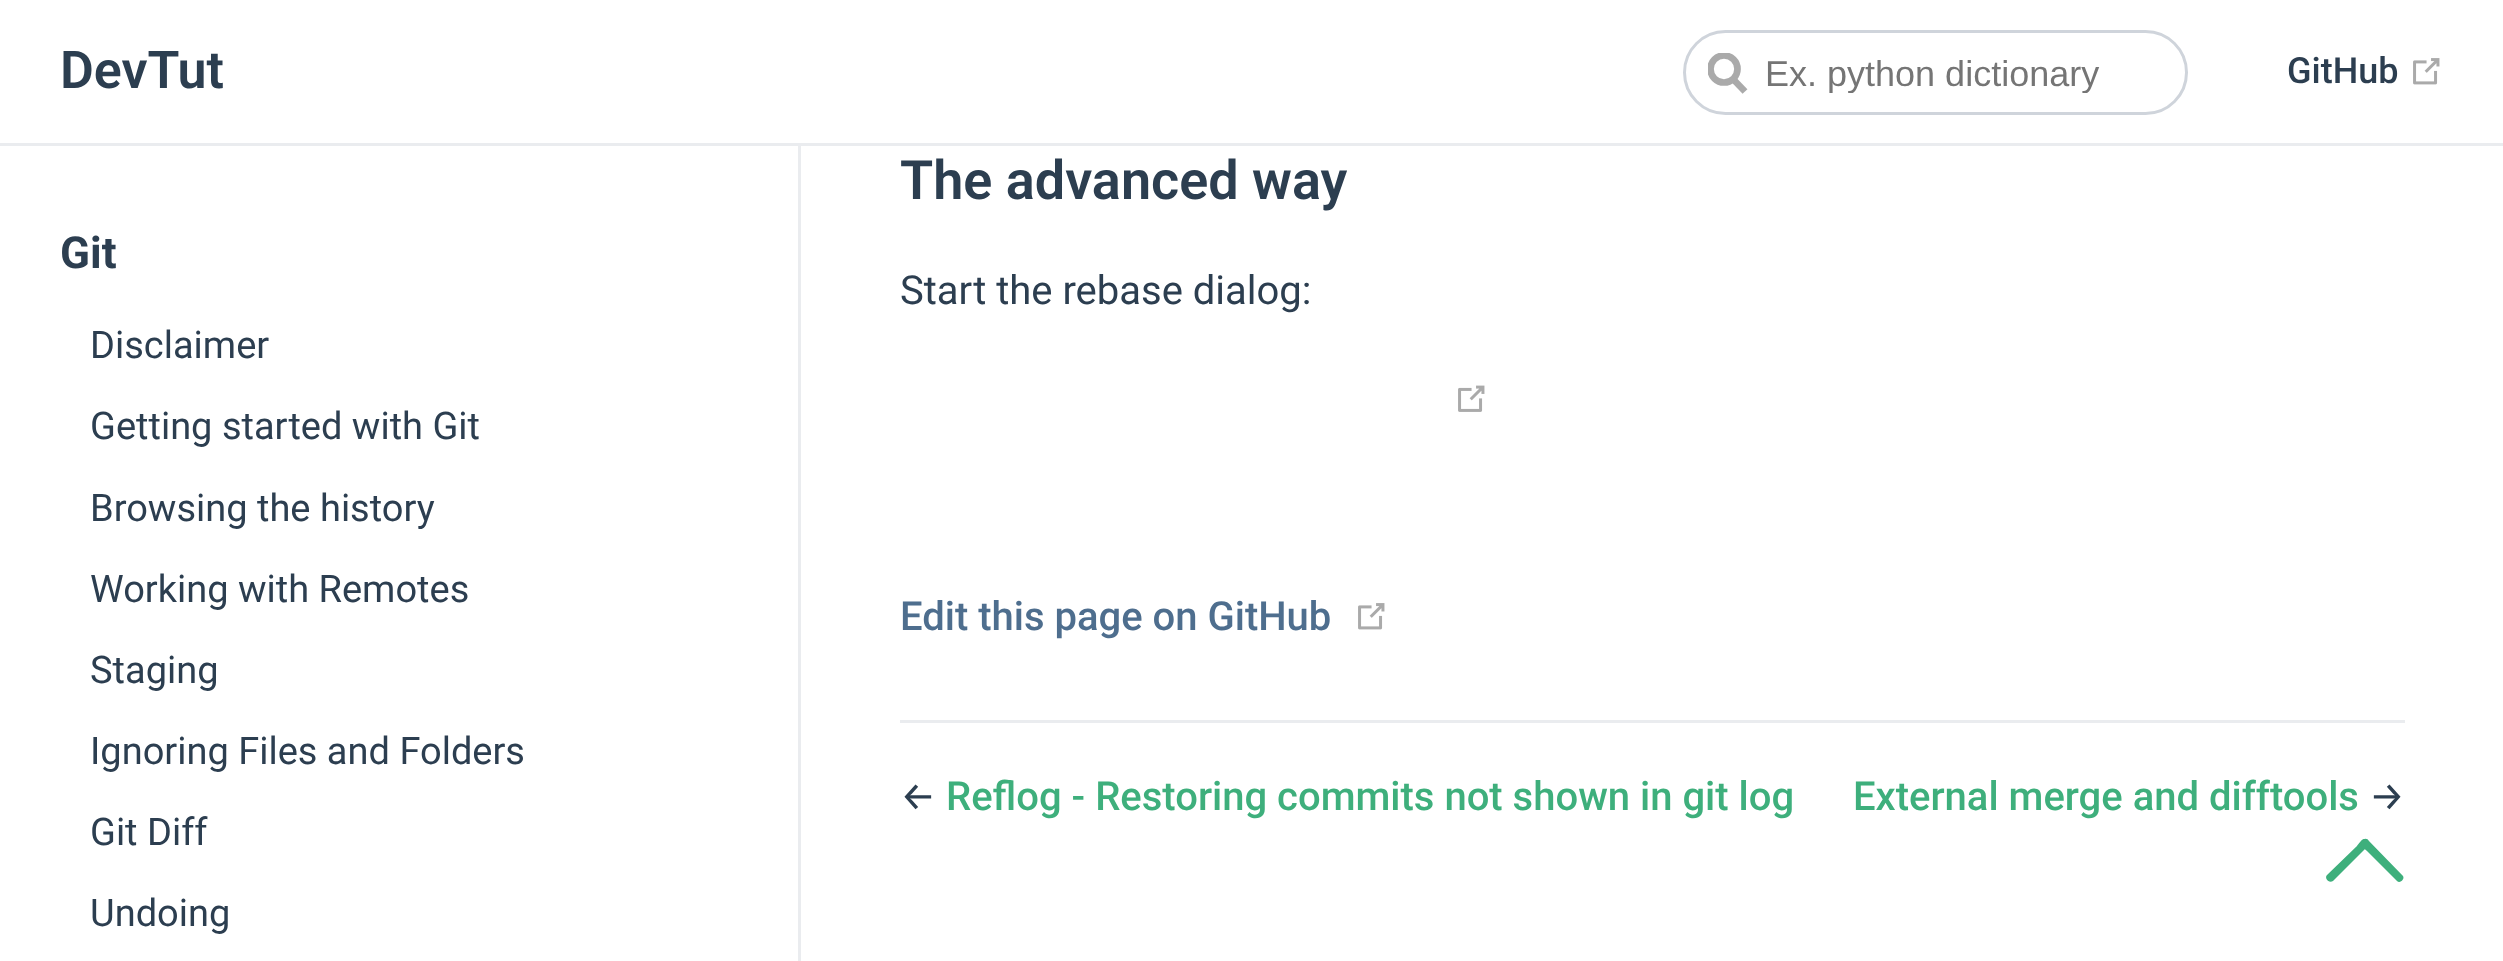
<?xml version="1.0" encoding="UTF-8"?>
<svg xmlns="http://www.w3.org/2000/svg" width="2503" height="961">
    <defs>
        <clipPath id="clip1"><rect x="1708" y="53" width="40" height="45"/></clipPath>
        <clipPath id="clip2"><rect x="1765" y="53" width="400" height="40"/></clipPath>
    </defs>
    <rect width="100%" height="100%" fill="#FFFFFF"/>
    <rect x="798" y="145" width="3" height="816" fill="#EAECEF"/>
    <rect x="0" y="143" width="2503" height="3" fill="#EAECEF"/>
    <text x="60" y="88" font-family="Roboto" font-size="52" font-weight="600" fill="#2C3E50">DevTut</text>
    <path d="M 1745 91.5 L 1732 78" fill="none" stroke="#AAAAAA" stroke-width="6.7"/>
    <g clip-path="url(#clip1)">
        <circle cx="1724" cy="69" r="13.5" fill="none" stroke="#AAAAAA" stroke-width="6.7"/>
    </g>
    <rect x="1684.5" y="31.5" width="502" height="82" rx="41" fill="none" stroke="#CFD4DB" stroke-width="3"/>
    <g clip-path="url(#clip2)">
        <text x="1765" y="86" font-family="Liberation Sans" font-size="36" fill="#757575">Ex. python dictionary</text>
    </g>
    <text x="2287" y="83" font-family="Roboto" font-size="36" font-weight="500" fill="#2C3E50">GitHub</text>
    <image x="2413" y="58" width="27" height="27" href="img_01.png"/>
    <text x="60" y="268" font-family="Roboto" font-size="44" font-weight="700" fill="#2C3E50">Git</text>
    <text x="90" y="358" font-family="Roboto" font-size="38" fill="#2C3E50">Disclaimer</text>
    <text x="90" y="439" font-family="Roboto" font-size="38" fill="#2C3E50">Getting started with Git</text>
    <text x="90" y="521" font-family="Roboto" font-size="38" fill="#2C3E50">Browsing the history</text>
    <text x="90" y="602" font-family="Roboto" font-size="38" fill="#2C3E50">Working with Remotes</text>
    <text x="90" y="683" font-family="Roboto" font-size="38" fill="#2C3E50">Staging</text>
    <text x="90" y="764" font-family="Roboto" font-size="38" fill="#2C3E50">Ignoring Files and Folders</text>
    <text x="90" y="845" font-family="Roboto" font-size="38" fill="#2C3E50">Git Diff</text>
    <text x="90" y="926" font-family="Roboto" font-size="38" fill="#2C3E50">Undoing</text>
    <text x="900" y="199" font-family="Roboto" font-size="54" font-weight="600" fill="#2C3E50">The advanced way</text>
    <text x="900" y="304" font-family="Roboto" font-size="40" fill="#2C3E50">Start the rebase dialog:</text>
    <image x="1458" y="385" width="27" height="27" href="img_02.png"/>
    <text x="900" y="630" font-family="Roboto" font-size="40" font-weight="500" fill="#4E6E8E">Edit this page on GitHub</text>
    <image x="1358" y="603" width="27" height="27" href="img_01.png"/>
    <rect x="900" y="720" width="1505" height="3" fill="#EAECEF"/>
    <text x="900" y="810" font-family="Fira Sans" font-size="40" fill="#2C3E50">←</text>
    <text x="946" y="810" font-family="Roboto" font-size="40" font-weight="500" fill="#3EAF7C">Reflog - Restoring commits not shown in git log</text>
    <text x="1853" y="810" font-family="Roboto" font-size="40" font-weight="500" fill="#3EAF7C">External merge and difftools</text>
    <text x="2369" y="810" font-family="Fira Sans" font-size="40" fill="#2C3E50">→</text>
    <path d="M 2327 875 L 2357 846 C 2359 843 2366 834 2369 842 C 2370 843 2369 844 2369 845 L 2333 881 C 2329 884 2324 878 2327 875 Z" fill="#3EAF7C"/>
    <path d="M 2397 881 L 2367 851 C 2365 849 2356 842 2364 839 C 2365 839 2366 839 2367 839 L 2403 876 C 2405 879 2400 884 2397 881 Z" fill="#3EAF7C"/>
</svg>
